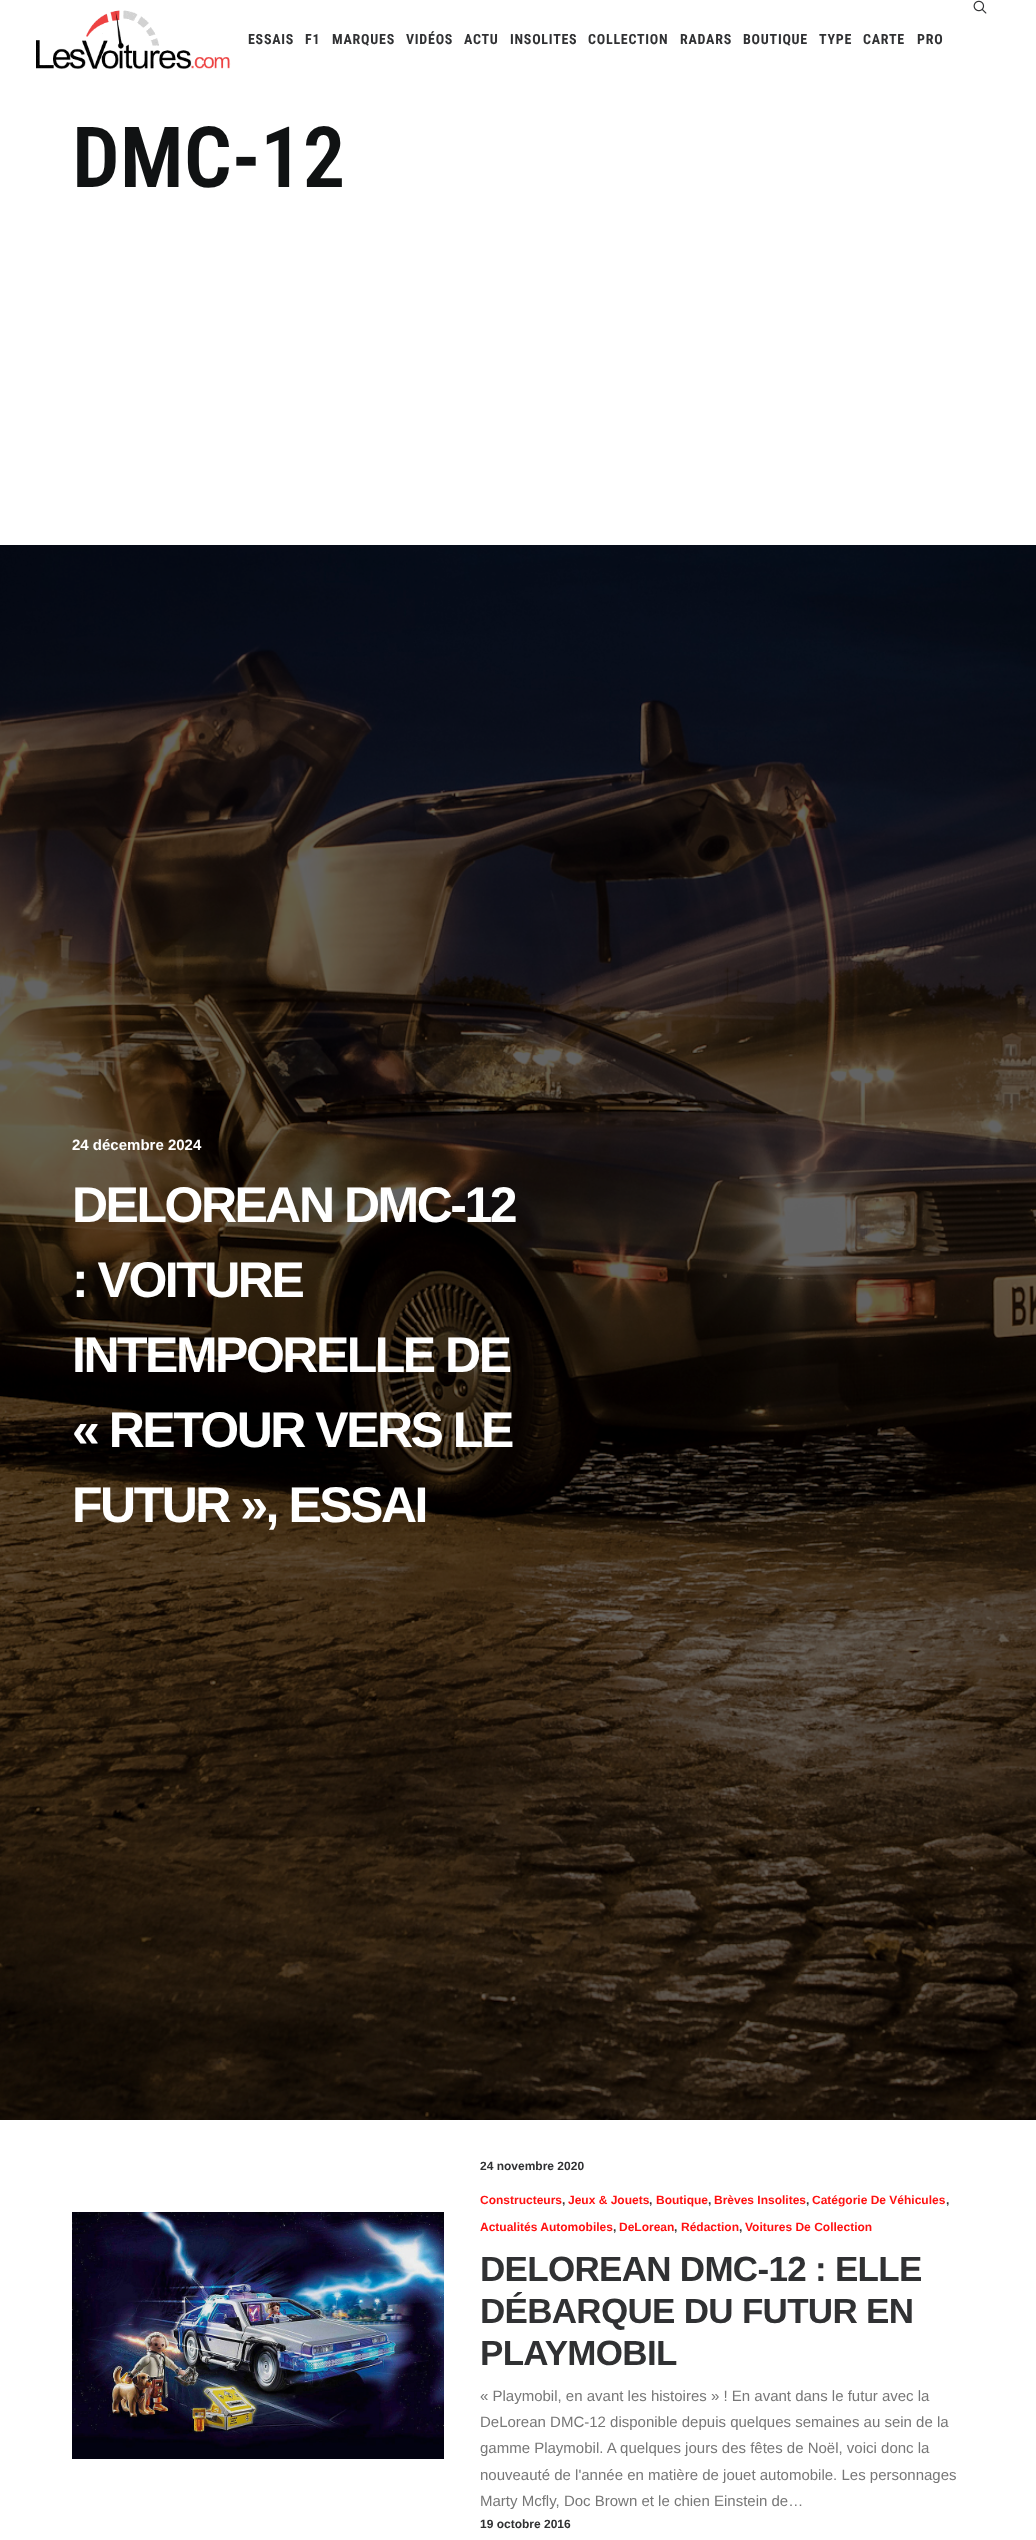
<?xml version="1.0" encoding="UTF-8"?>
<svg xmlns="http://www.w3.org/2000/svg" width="1036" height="2540">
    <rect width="100%" height="100%" fill="#FFFFFF"/>
    <image x="36" y="10" width="195" height="59" href="img_01.png"/>
    <image x="973" y="0" width="14" height="14" href="img_02.png"/>
    <text x="248" y="44" font-family="Roboto Condensed" font-size="14" font-weight="700" letter-spacing="0.75" fill="#303133">ESSAIS</text>
    <text x="305" y="44" font-family="Roboto Condensed" font-size="14" font-weight="700" letter-spacing="0.75" fill="#303133">F1</text>
    <text x="332" y="44" font-family="Roboto Condensed" font-size="14" font-weight="700" letter-spacing="0.75" fill="#303133">MARQUES</text>
    <text x="406" y="44" font-family="Roboto Condensed" font-size="14" font-weight="700" letter-spacing="0.75" fill="#303133">VIDÉOS</text>
    <text x="464" y="44" font-family="Roboto Condensed" font-size="14" font-weight="700" letter-spacing="0.75" fill="#303133">ACTU</text>
    <text x="510" y="44" font-family="Roboto Condensed" font-size="14" font-weight="700" letter-spacing="0.75" fill="#303133">INSOLITES</text>
    <text x="588" y="44" font-family="Roboto Condensed" font-size="14" font-weight="700" letter-spacing="0.75" fill="#303133">COLLECTION</text>
    <text x="680" y="44" font-family="Roboto Condensed" font-size="14" font-weight="700" letter-spacing="0.75" fill="#303133">RADARS</text>
    <text x="743" y="44" font-family="Roboto Condensed" font-size="14" font-weight="700" letter-spacing="0.75" fill="#303133">BOUTIQUE</text>
    <text x="819" y="44" font-family="Roboto Condensed" font-size="14" font-weight="700" letter-spacing="0.75" fill="#303133">TYPE</text>
    <text x="863" y="44" font-family="Roboto Condensed" font-size="14" font-weight="700" letter-spacing="0.75" fill="#303133">CARTE</text>
    <text x="917" y="44" font-family="Roboto Condensed" font-size="14" font-weight="700" letter-spacing="0.75" fill="#303133">PRO</text>
    <text x="72" y="187" font-family="Roboto Condensed" font-size="84.5" font-weight="600" fill="#101213">DMC-12</text>
    <image x="0" y="545" width="1036" height="1575" href="img_03.png"/>
    <text x="72" y="1150" font-family="Liberation Sans" font-size="15" font-weight="700" fill="#FFFFFF">24 décembre 2024</text>
    <text font-family="Liberation Sans" font-size="50" font-weight="700" letter-spacing="-2.5" fill="#FFFFFF">
        <tspan x="72" y="1222">DELOREAN DMC-12</tspan>
        <tspan x="72" y="1297">: VOITURE</tspan>
        <tspan x="72" y="1372">INTEMPORELLE DE</tspan>
        <tspan x="72" y="1447">« RETOUR VERS LE</tspan>
        <tspan x="72" y="1522">FUTUR », ESSAI</tspan>
    </text>
    <image x="72" y="2212" width="372" height="247" href="img_04.png"/>
    <text x="480" y="2170" font-family="Liberation Sans" font-size="12" font-weight="700" fill="#303133">24 novembre 2020</text>
    <text x="480" y="2204" font-family="Liberation Sans" font-size="12" font-weight="700" fill="#FF1111">Constructeurs</text>
    <text x="562" y="2204" font-family="Liberation Sans" font-size="12" font-weight="700" fill="#303133">,</text>
    <text x="568" y="2204" font-family="Liberation Sans" font-size="12" font-weight="700" fill="#FF1111">Jeux &amp; Jouets</text>
    <text x="649" y="2204" font-family="Liberation Sans" font-size="12" font-weight="700" fill="#303133">,</text>
    <text x="656" y="2204" font-family="Liberation Sans" font-size="12" font-weight="700" fill="#FF1111">Boutique</text>
    <text x="708" y="2204" font-family="Liberation Sans" font-size="12" font-weight="700" fill="#303133">,</text>
    <text x="714" y="2204" font-family="Liberation Sans" font-size="12" font-weight="700" fill="#FF1111">Brèves Insolites</text>
    <text x="806" y="2204" font-family="Liberation Sans" font-size="12" font-weight="700" fill="#303133">,</text>
    <text x="812" y="2204" font-family="Liberation Sans" font-size="12" font-weight="700" fill="#FF1111">Catégorie De Véhicules</text>
    <text x="946" y="2204" font-family="Liberation Sans" font-size="12" font-weight="700" fill="#303133">,</text>
    <text x="480" y="2231" font-family="Liberation Sans" font-size="12" font-weight="700" fill="#FF1111">Actualités Automobiles</text>
    <text x="613" y="2231" font-family="Liberation Sans" font-size="12" font-weight="700" fill="#303133">,</text>
    <text x="619" y="2231" font-family="Liberation Sans" font-size="12" font-weight="700" fill="#FF1111">DeLorean</text>
    <text x="674" y="2231" font-family="Liberation Sans" font-size="12" font-weight="700" fill="#303133">,</text>
    <text x="681" y="2231" font-family="Liberation Sans" font-size="12" font-weight="700" fill="#FF1111">Rédaction</text>
    <text x="739" y="2231" font-family="Liberation Sans" font-size="12" font-weight="700" fill="#303133">,</text>
    <text x="745" y="2231" font-family="Liberation Sans" font-size="12" font-weight="700" fill="#FF1111">Voitures De Collection</text>
    <text font-family="Liberation Sans" font-size="35" font-weight="700" letter-spacing="-0.7" fill="#303133">
        <tspan x="480" y="2281">DELOREAN DMC-12 : ELLE</tspan>
        <tspan x="480" y="2323">DÉBARQUE DU FUTUR EN</tspan>
        <tspan x="480" y="2365">PLAYMOBIL</tspan>
    </text>
    <text font-family="Liberation Sans" font-size="15" fill="#777777">
        <tspan x="480" y="2401">« Playmobil, en avant les histoires » ! En avant dans le futur avec la</tspan>
        <tspan x="480" y="2427">DeLorean DMC-12 disponible depuis quelques semaines au sein de la</tspan>
        <tspan x="480" y="2453">gamme Playmobil. A quelques jours des fêtes de Noël, voici donc la</tspan>
        <tspan x="480" y="2480">nouveauté de l'année en matière de jouet automobile. Les personnages</tspan>
        <tspan x="480" y="2506">Marty Mcfly, Doc Brown et le chien Einstein de…</tspan>
    </text>
    <text x="480" y="2528" font-family="Liberation Sans" font-size="12" font-weight="700" fill="#303133">19 octobre 2016</text>
</svg>
